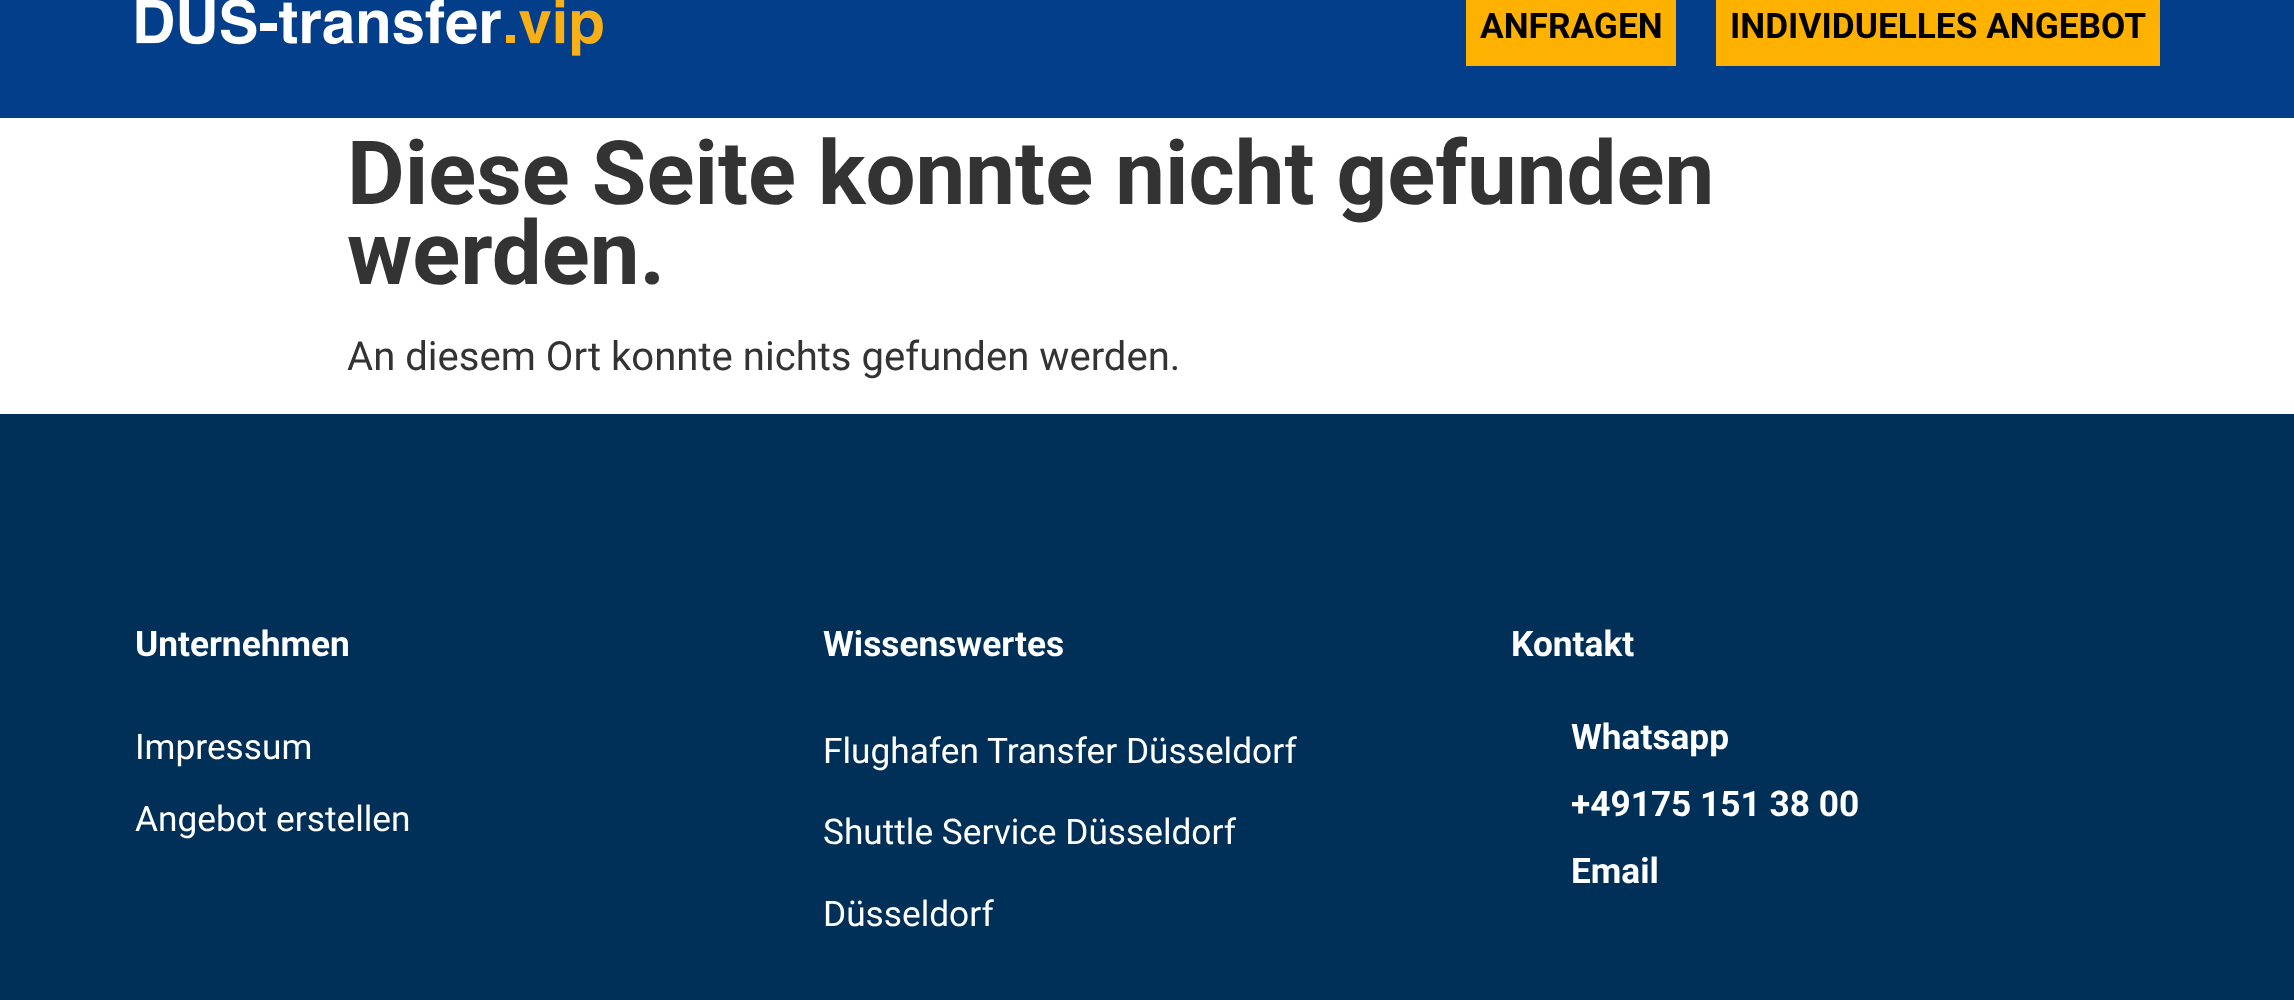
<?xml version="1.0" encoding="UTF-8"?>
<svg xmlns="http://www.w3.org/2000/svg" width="2294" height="1000">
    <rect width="100%" height="100%" fill="#FFFFFF"/>
    <rect x="0" y="0" width="2294" height="118" fill="#023E8A"/>
    <image x="136" y="0" width="467" height="56" href="img_01.png"/>
    <rect x="1466" y="0" width="210" height="66" fill="#FFB100"/>
    <text x="1480" y="38" font-family="Roboto" font-size="35.25" font-weight="700" fill="#000000">ANFRAGEN</text>
    <rect x="1716" y="0" width="444" height="66" fill="#FFB100"/>
    <text x="1730" y="38" font-family="Roboto" font-size="35.25" font-weight="700" fill="#000000">INDIVIDUELLES ANGEBOT</text>
    <text font-family="Roboto" font-size="88.8" font-weight="700" fill="#333333">
        <tspan x="347" y="204">Diese Seite konnte nicht gefunden</tspan>
        <tspan x="347" y="284">werden.</tspan>
    </text>
    <text x="347" y="370" font-family="Roboto" font-size="40.1" fill="#333333">An diesem Ort konnte nichts gefunden werden.</text>
    <rect x="0" y="414" width="2294" height="586" fill="#003057"/>
    <text x="135" y="656" font-family="Roboto" font-size="35.25" font-weight="700" fill="#FFFFFF">Unternehmen</text>
    <text x="135" y="759" font-family="Roboto" font-size="35.25" fill="#FFFFFF">Impressum</text>
    <text x="135" y="831" font-family="Roboto" font-size="35.25" fill="#FFFFFF">Angebot erstellen</text>
    <text x="823" y="656" font-family="Roboto" font-size="35.25" font-weight="700" fill="#FFFFFF">Wissenswertes</text>
    <text x="823" y="763" font-family="Roboto" font-size="35.25" fill="#FFFFFF">Flughafen Transfer Düsseldorf</text>
    <text x="823" y="844" font-family="Roboto" font-size="35.25" fill="#FFFFFF">Shuttle Service Düsseldorf</text>
    <text x="823" y="926" font-family="Roboto" font-size="35.25" fill="#FFFFFF">Düsseldorf</text>
    <text x="1511" y="656" font-family="Roboto" font-size="35.25" font-weight="700" fill="#FFFFFF">Kontakt</text>
    <text font-family="Roboto" font-size="35.25" font-weight="700" fill="#FFFFFF">
        <tspan x="1571" y="749">Whatsapp</tspan>
        <tspan x="1571" y="816">+49175 151 38 00</tspan>
        <tspan x="1571" y="883">Email</tspan>
    </text>
</svg>
